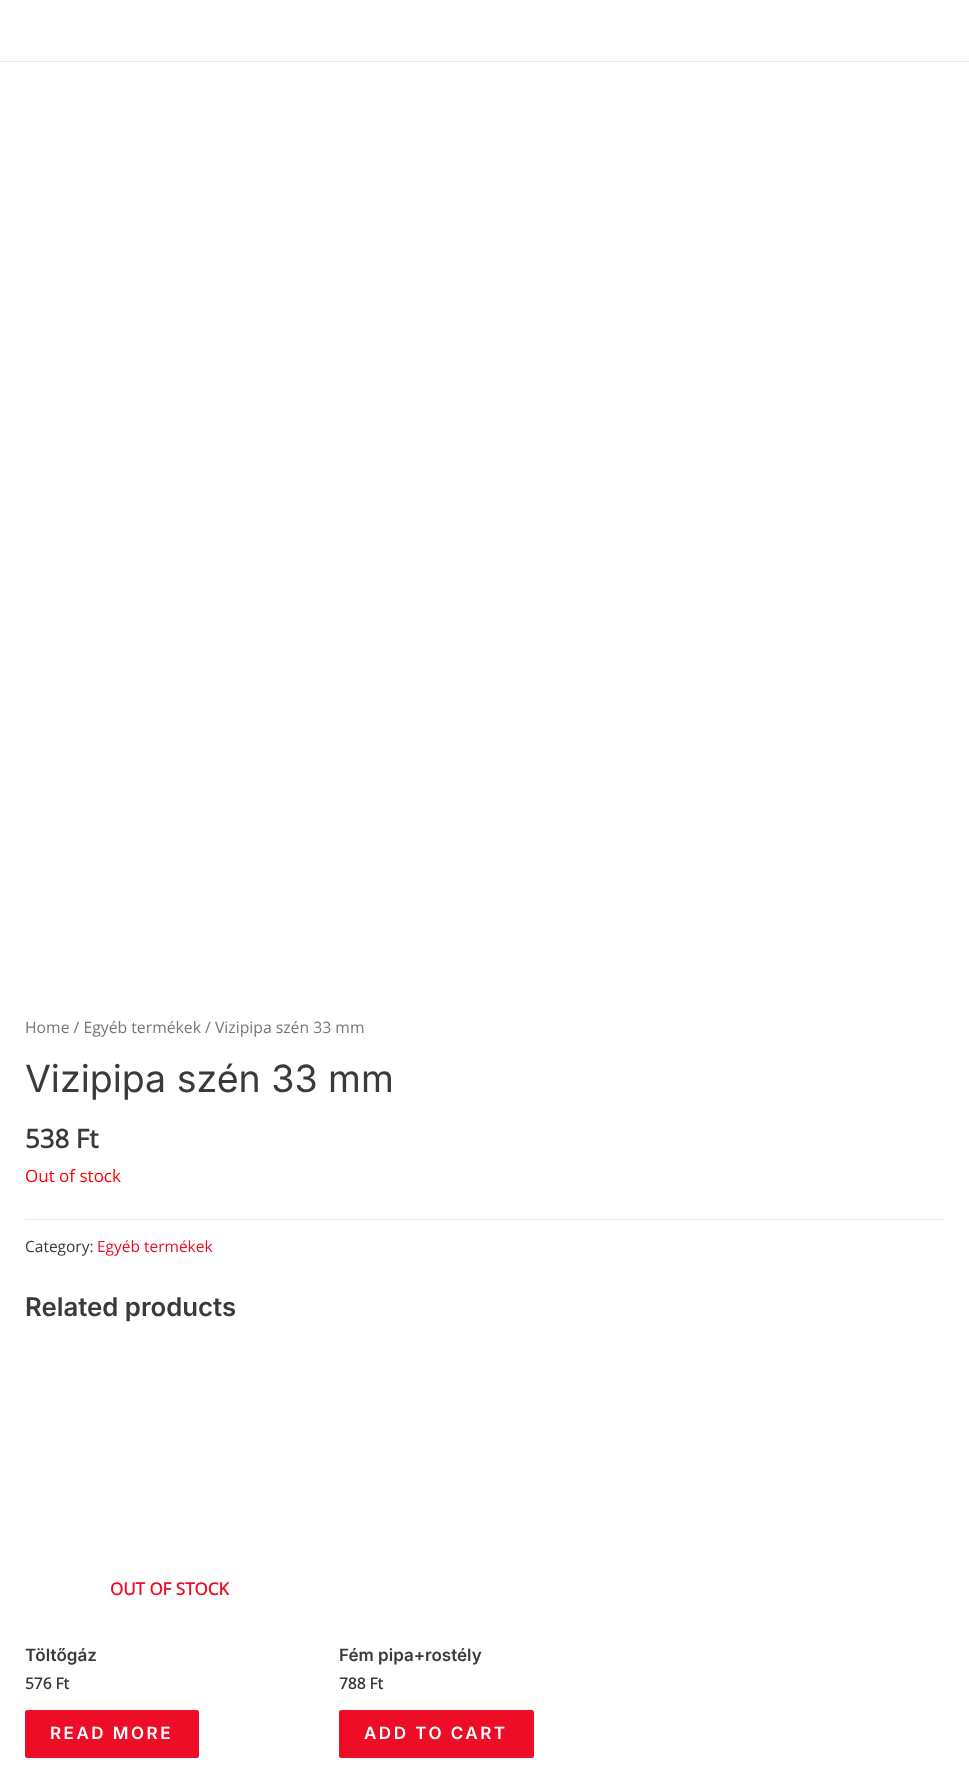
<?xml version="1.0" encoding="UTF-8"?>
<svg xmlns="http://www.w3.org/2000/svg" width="969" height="1792">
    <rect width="100%" height="100%" fill="#FFFFFF"/>
    <rect x="0" y="61" width="969" height="1" fill="#EAEAEA"/>
    <text x="25" y="1033" font-family="Open Sans" font-size="15.75" fill="#777777">Home / Egyéb termékek / Vizipipa szén 33 mm</text>
    <text x="25" y="1092" font-family="Inter" font-size="37.5" fill="#3A3A3A">Vizipipa szén 33 mm</text>
    <text x="25" y="1148" font-family="Open Sans" font-size="25.75" font-weight="700" fill="#3A3A3A">538 Ft</text>
    <text x="25" y="1182" font-family="Open Sans" font-size="17" fill="#FF0000">Out of stock</text>
    <rect x="25" y="1219" width="920" height="1" fill="#EBEBEB"/>
    <text x="25" y="1252" font-family="Open Sans" font-size="15.5" fill="#3A3A3A">Category:</text>
    <text x="97" y="1252" font-family="Open Sans" font-size="15.5" fill="#ED0D27">Egyéb termékek</text>
    <text x="25" y="1316" font-family="Inter" font-size="25.75" font-weight="600" fill="#3A3A3A">Related products</text>
    <text x="110" y="1595" font-family="Open Sans" font-size="17" font-weight="700" fill="#ED0D27">OUT OF STOCK</text>
    <text x="25" y="1661" font-family="Inter" font-size="17" font-weight="600" fill="#3A3A3A">Töltőgáz</text>
    <text x="25" y="1689" font-family="Open Sans" font-size="15.5" font-weight="700" fill="#3A3A3A">576 Ft</text>
    <rect x="25" y="1710" width="174" height="48" rx="2.5" fill="#ED0D27"/>
    <text x="50" y="1739" font-family="Inter" font-size="17" font-weight="600" letter-spacing="2.5" fill="#FFFFFF">READ MORE</text>
    <text x="339" y="1661" font-family="Inter" font-size="17" font-weight="600" fill="#3A3A3A">Fém pipa+rostély</text>
    <text x="339" y="1689" font-family="Open Sans" font-size="15.5" font-weight="700" fill="#3A3A3A">788 Ft</text>
    <rect x="339" y="1710" width="195" height="48" rx="2.5" fill="#ED0D27"/>
    <text x="364" y="1739" font-family="Inter" font-size="17" font-weight="600" letter-spacing="2.5" fill="#FFFFFF">ADD TO CART</text>
</svg>
